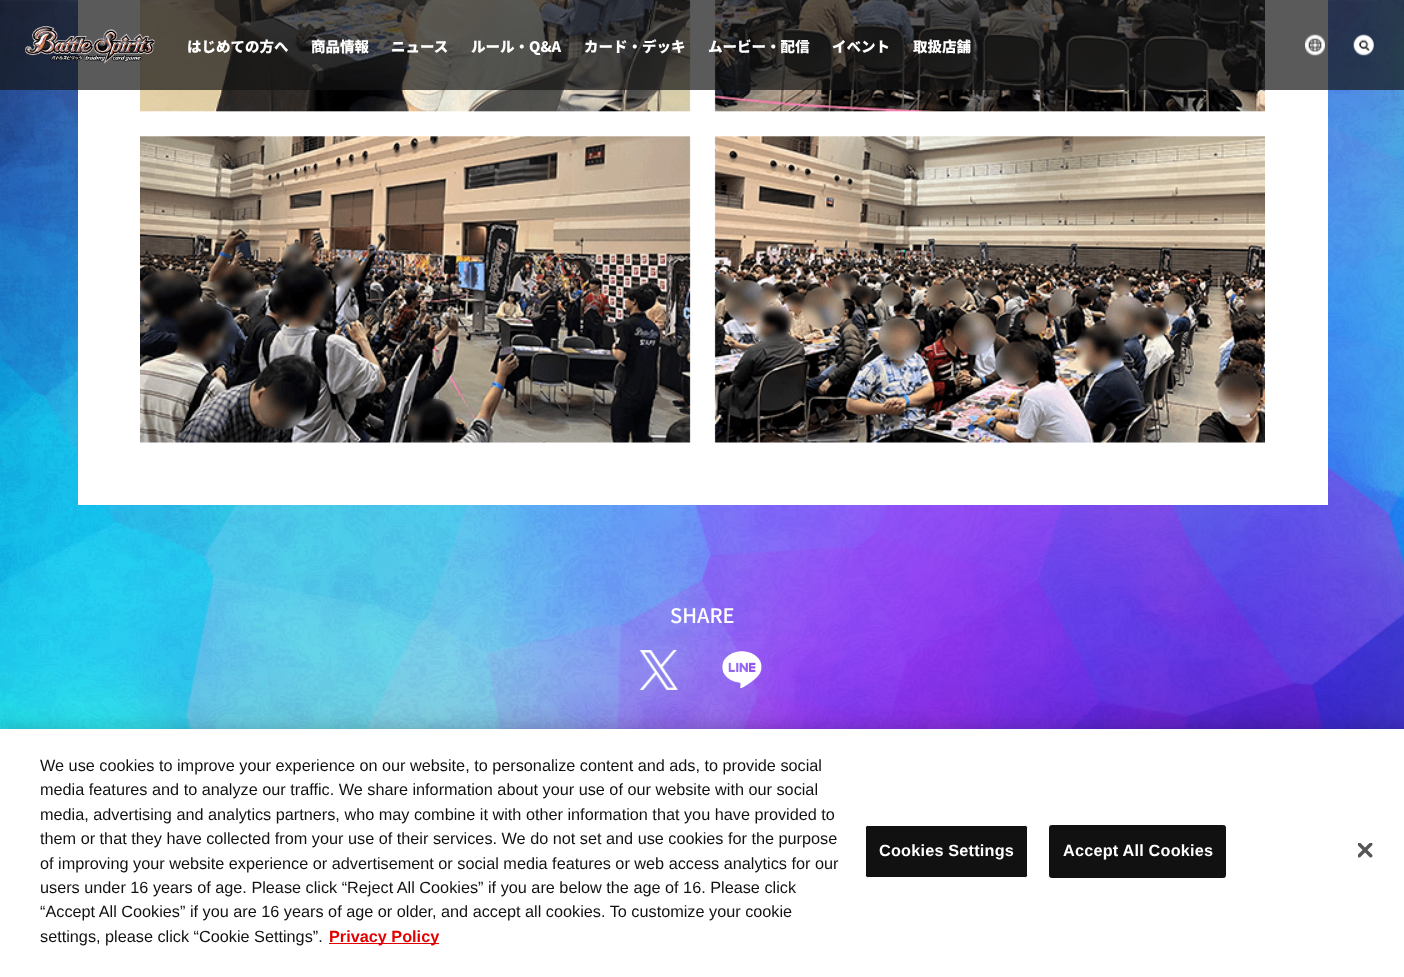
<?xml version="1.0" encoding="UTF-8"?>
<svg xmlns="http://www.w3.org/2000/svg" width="1404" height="977">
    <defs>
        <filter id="blur1" x="-50%" y="-200%" width="200%" height="500%"><feGaussianBlur stdDeviation="11"/></filter>
    </defs>
    <rect width="100%" height="100%" fill="#FFFFFF"/>
    <image x="0" y="0" width="1404" height="729" href="img_01.png"/>
    <rect x="78" y="0" width="1250" height="505" fill="#FFFFFF"/>
    <image x="140" y="0" width="1125" height="443" href="img_02.png"/>
    <rect x="0" y="0" width="1404" height="90" fill="#141414" fill-opacity="0.7"/>
    <image x="25" y="26" width="130" height="38" href="img_03.png"/>
    <text x="187" y="52" font-family="Noto Sans JP" font-size="14.5" font-weight="900" fill="#FFFFFF">はじめての方へ</text>
    <text x="311" y="52" font-family="Noto Sans JP" font-size="14.5" font-weight="900" fill="#FFFFFF">商品情報</text>
    <text x="391" y="52" font-family="Noto Sans JP" font-size="14.5" font-weight="900" fill="#FFFFFF">ニュース</text>
    <text x="471" y="52" font-family="Noto Sans JP" font-size="14.5" font-weight="900" fill="#FFFFFF">ルール・Q&amp;A</text>
    <text x="584" y="52" font-family="Noto Sans JP" font-size="14.5" font-weight="900" fill="#FFFFFF">カード・デッキ</text>
    <text x="708" y="52" font-family="Noto Sans JP" font-size="14.5" font-weight="900" fill="#FFFFFF">ムービー・配信</text>
    <text x="832" y="52" font-family="Noto Sans JP" font-size="14.5" font-weight="900" fill="#FFFFFF">イベント</text>
    <text x="913" y="52" font-family="Noto Sans JP" font-size="14.5" font-weight="900" fill="#FFFFFF">取扱店舗</text>
    <image x="1305" y="34" width="20" height="22" href="img_04.png"/>
    <image x="1353" y="34" width="21" height="22" href="img_05.png"/>
    <text x="670" y="623" font-family="Noto Sans JP" font-size="20" font-weight="500" fill="#FFFFFF">SHARE</text>
    <image x="640" y="650" width="38" height="40" href="img_06.png"/>
    <image x="722" y="651" width="40" height="37" href="img_07.png"/>
    <rect x="0" y="729" width="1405" height="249" fill="#000000" fill-opacity="0.2" filter="url(#blur1)"/>
    <rect x="0" y="729" width="1404" height="248" fill="#FFFFFF"/>
    <text font-family="Liberation Sans" font-size="16.25" fill="#111111">
        <tspan x="40" y="771">We use cookies to improve your experience on our website, to personalize content and ads, to provide social</tspan>
        <tspan x="40" y="795">media features and to analyze our traffic. We share information about your use of our website with our social</tspan>
        <tspan x="40" y="820">media, advertising and analytics partners, who may combine it with other information that you have provided to</tspan>
        <tspan x="40" y="844">them or that they have collected from your use of their services. We do not set and use cookies for the purpose</tspan>
        <tspan x="40" y="869">of improving your website experience or advertisement or social media features or web access analytics for our</tspan>
        <tspan x="40" y="893">users under 16 years of age. Please click “Reject All Cookies” if you are below the age of 16. Please click</tspan>
        <tspan x="40" y="917">“Accept All Cookies” if you are 16 years of age or older, and accept all cookies. To customize your cookie</tspan>
        <tspan x="40" y="942">settings, please click “Cookie Settings”.</tspan>
    </text>
    <rect x="329" y="943" width="110" height="1" fill="#E20000"/>
    <text x="329" y="942" font-family="Liberation Sans" font-size="16.25" font-weight="700" fill="#E20000">Privacy Policy</text>
    <rect x="865.5" y="825.5" width="162" height="52" rx="2" fill="#111111" stroke="#FFFFFF"/>
    <text x="879" y="856" font-family="Liberation Sans" font-size="16.25" font-weight="700" letter-spacing="0.2" fill="#FFFFFF">Cookies Settings</text>
    <rect x="1049.5" y="825.5" width="176" height="52" rx="2" fill="#111111" stroke="#111111"/>
    <text x="1063" y="856" font-family="Liberation Sans" font-size="16.25" font-weight="700" letter-spacing="0.2" fill="#FFFFFF">Accept All Cookies</text>
    <image x="1358" y="843" width="15" height="15" href="img_08.png"/>
</svg>
